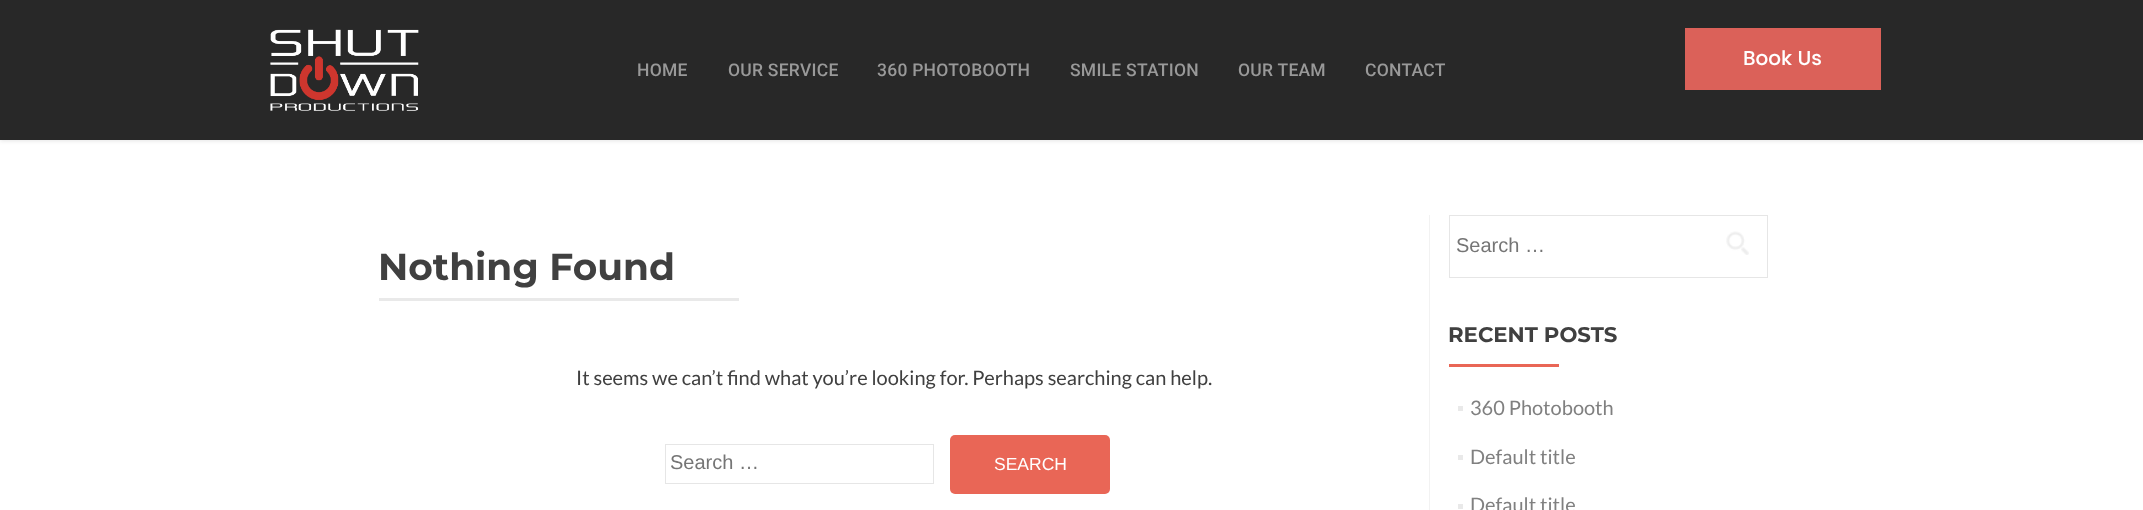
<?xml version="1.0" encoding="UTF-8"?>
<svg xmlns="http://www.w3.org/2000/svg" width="2143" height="510">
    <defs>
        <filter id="blur1" x="-50%" y="-200%" width="200%" height="500%"><feGaussianBlur stdDeviation="2"/></filter>
    </defs>
    <rect width="100%" height="100%" fill="#FFFFFF"/>
    <rect x="0" y="1" width="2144" height="140" fill="#000000" fill-opacity="0.1" filter="url(#blur1)"/>
    <rect x="0" y="0" width="2143" height="140" fill="#282828"/>
    <image x="270" y="29" width="149" height="82" href="img_01.png"/>
    <rect x="1685" y="28" width="196" height="62" fill="#DB6159"/>
    <text x="1743" y="65" font-family="Poppins" font-size="20" font-weight="500" fill="#FFFFFF">Book Us</text>
    <text x="637" y="76" font-family="Roboto" font-size="17.5" font-weight="500" letter-spacing="0.25" fill="#999999">HOME</text>
    <text x="728" y="76" font-family="Roboto" font-size="17.5" font-weight="500" letter-spacing="0.25" fill="#999999">OUR SERVICE</text>
    <text x="877" y="76" font-family="Roboto" font-size="17.5" font-weight="500" letter-spacing="0.25" fill="#999999">360 PHOTOBOOTH</text>
    <text x="1070" y="76" font-family="Roboto" font-size="17.5" font-weight="500" letter-spacing="0.25" fill="#999999">SMILE STATION</text>
    <text x="1238" y="76" font-family="Roboto" font-size="17.5" font-weight="500" letter-spacing="0.25" fill="#999999">OUR TEAM</text>
    <text x="1365" y="76" font-family="Roboto" font-size="17.5" font-weight="500" letter-spacing="0.25" fill="#999999">CONTACT</text>
    <text x="378" y="280" font-family="Montserrat" font-size="37.5" font-weight="100" fill="#404040">Nothing Found</text>
    <rect x="379" y="298" width="360" height="3" fill="#E9E9E9"/>
    <text x="576" y="385" font-family="Lato" font-size="20" fill="#404040">It seems we can’t find what you’re looking for. Perhaps searching can help.</text>
    <rect x="665.5" y="444.5" width="268" height="39" fill="none" stroke="#E6E6E6"/>
    <text x="670" y="469" font-family="Liberation Sans" font-size="20" fill="#757575">Search …</text>
    <rect x="950" y="435" width="160" height="59" rx="5" fill="#E96656"/>
    <text x="994" y="470" font-family="Liberation Sans" font-size="17.5" fill="#FFFFFF">SEARCH</text>
    <rect x="1429" y="215" width="1" height="295" fill="#F2F2F2"/>
    <rect x="1449.5" y="215.5" width="318" height="62" fill="none" stroke="#E6E6E6"/>
    <text x="1456" y="252" font-family="Liberation Sans" font-size="20" fill="#757575">Search …</text>
    <image x="1726" y="231" width="23" height="24" href="img_02.png"/>
    <text x="1448" y="342" font-family="Montserrat" font-size="21.25" font-weight="100" fill="#404040">RECENT POSTS</text>
    <rect x="1449" y="364" width="110" height="3" fill="#E96656"/>
    <rect x="1458" y="406" width="5" height="5" fill="#E9E9E9"/>
    <text x="1470" y="415" font-family="Lato" font-size="20" fill="#808080">360 Photobooth</text>
    <rect x="1458" y="455" width="5" height="5" fill="#E9E9E9"/>
    <text x="1470" y="464" font-family="Lato" font-size="20" fill="#808080">Default title</text>
    <rect x="1458" y="504" width="5" height="5" fill="#E9E9E9"/>
    <text x="1470" y="512" font-family="Lato" font-size="20" fill="#808080">Default title</text>
</svg>
